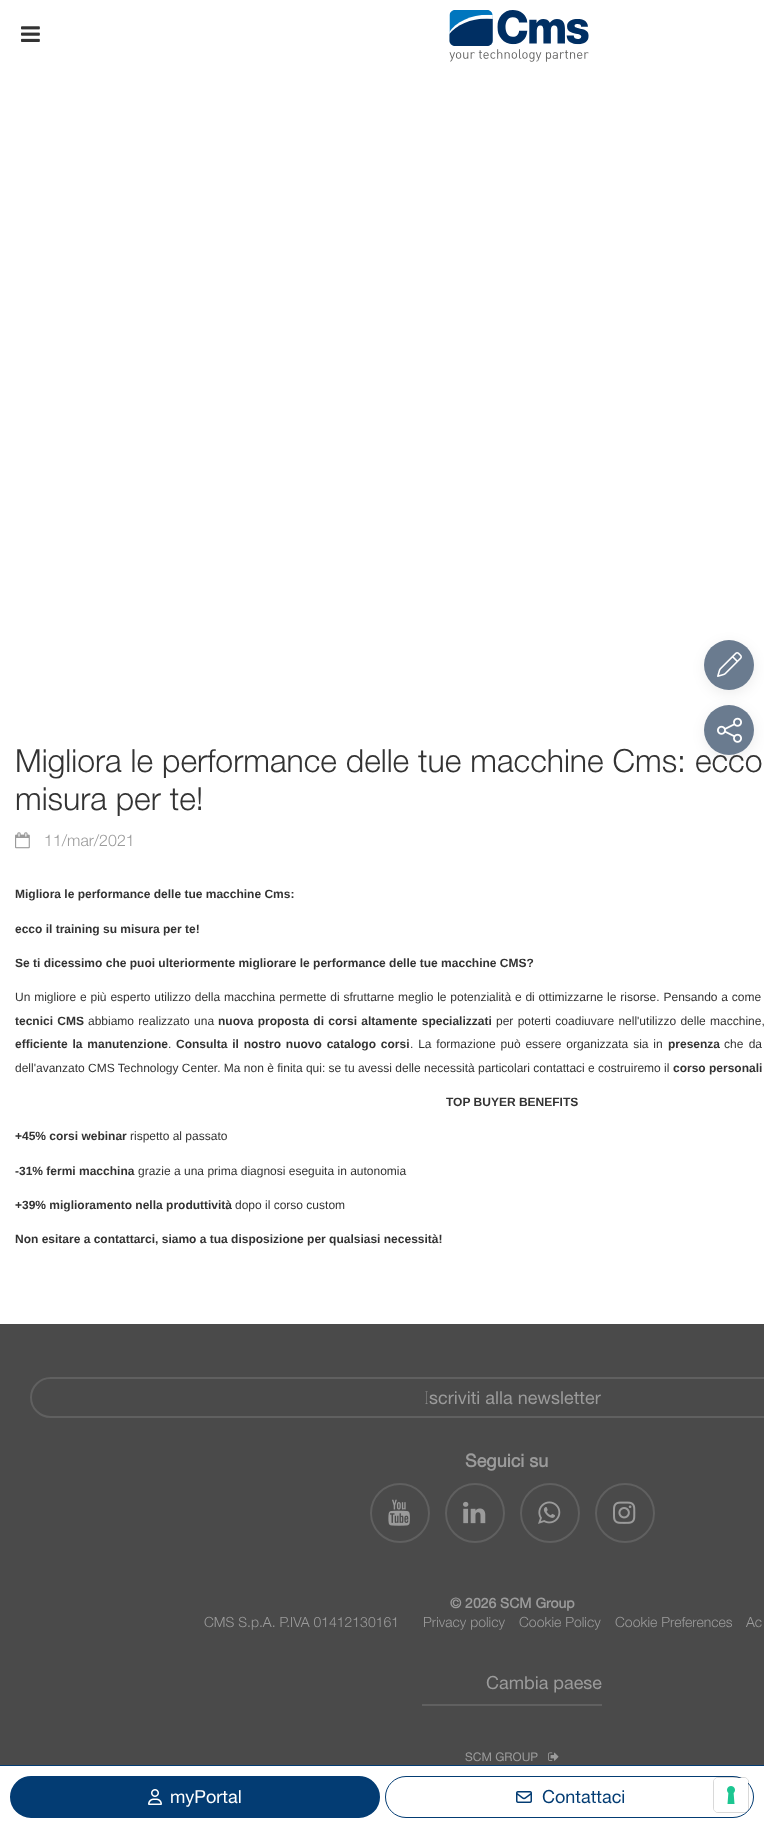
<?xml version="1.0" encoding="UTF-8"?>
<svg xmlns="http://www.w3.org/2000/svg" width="764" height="1828">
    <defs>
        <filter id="blur1" x="-50%" y="-200%" width="200%" height="500%"><feGaussianBlur stdDeviation="7"/></filter>
    </defs>
    <rect width="100%" height="100%" fill="#FFFFFF"/>
    <rect x="705" y="644" width="49" height="49" rx="24.5" fill="#000810" fill-opacity="0.08" filter="url(#blur1)"/>
    <circle cx="729" cy="665" r="25" fill="#6A7B8F"/>
    <image x="717" y="652" width="25" height="25" href="img_01.png"/>
    <rect x="705" y="709" width="49" height="49" rx="24.5" fill="#000810" fill-opacity="0.08" filter="url(#blur1)"/>
    <text x="15" y="772" font-family="Helvetica Neue" font-size="32" font-weight="300" fill="#333333">Migliora le performance delle tue macchine Cms: ecco</text>
    <circle cx="729" cy="730" r="25" fill="#6A7B8F"/>
    <image x="717" y="717" width="25" height="26" href="img_02.png"/>
    <image x="21" y="26" width="19" height="16" href="img_03.png"/>
    <image x="449" y="10" width="140" height="52" href="img_04.png"/>
    <text x="15" y="810" font-family="Helvetica Neue" font-size="32" font-weight="300" fill="#333333">misura per te!</text>
    <image x="15" y="832" width="15" height="17" href="img_05.png"/>
    <text x="44" y="846" font-family="Helvetica Neue" font-size="16" font-weight="300" fill="#9B9B9B">11/mar/2021</text>
    <text x="15" y="898" font-family="Liberation Sans" font-size="12" font-weight="700" fill="#333333">Migliora le performance delle tue macchine Cms:</text>
    <text x="15" y="933" font-family="Liberation Sans" font-size="12" font-weight="700" fill="#333333">ecco il training su misura per te!</text>
    <text x="15" y="967" font-family="Liberation Sans" font-size="12" font-weight="700" fill="#333333">Se ti dicessimo che puoi ulteriormente migliorare le performance delle tue macchine CMS?</text>
    <text x="15" y="1001" word-spacing="0.5" font-family="Liberation Sans" font-size="12" fill="#333333">Un migliore e più esperto utilizzo della macchina permette di sfruttarne meglio le potenzialità e di ottimizzarne le risorse. Pensando a come</text>
    <text x="15" y="1025" word-spacing="1" font-family="Liberation Sans" font-size="12" font-weight="700" fill="#333333">tecnici CMS</text>
    <text x="88" y="1025" word-spacing="1" font-family="Liberation Sans" font-size="12" fill="#333333">abbiamo realizzato una</text>
    <text x="218" y="1025" word-spacing="1" font-family="Liberation Sans" font-size="12" font-weight="700" fill="#333333">nuova proposta di corsi altamente specializzati</text>
    <text x="496" y="1025" word-spacing="1" font-family="Liberation Sans" font-size="12" fill="#333333">per poterti coadiuvare nell'utilizzo delle macchine,</text>
    <text x="15" y="1048" word-spacing="1.5" font-family="Liberation Sans" font-size="12" font-weight="700" fill="#333333">efficiente la manutenzione</text>
    <text x="168" y="1048" font-family="Liberation Sans" font-size="12" fill="#333333">.</text>
    <text x="176" y="1048" word-spacing="1.5" font-family="Liberation Sans" font-size="12" font-weight="700" fill="#333333">Consulta il nostro nuovo catalogo corsi</text>
    <text x="410" y="1048" word-spacing="1.5" font-family="Liberation Sans" font-size="12" fill="#333333">. La formazione può essere organizzata sia in</text>
    <text x="668" y="1048" font-family="Liberation Sans" font-size="12" font-weight="700" fill="#333333">presenza</text>
    <text x="724" y="1048" word-spacing="2" font-family="Liberation Sans" font-size="12" fill="#333333">che da</text>
    <text x="15" y="1072" font-family="Liberation Sans" font-size="12" fill="#333333">dell'avanzato CMS Technology Center. Ma non è finita qui: se tu avessi delle necessità particolari contattaci e costruiremo il</text>
    <text x="673" y="1072" font-family="Liberation Sans" font-size="12" font-weight="700" fill="#333333">corso personali</text>
    <text x="446" y="1106" font-family="Liberation Sans" font-size="12" font-weight="700" fill="#333333">TOP BUYER BENEFITS</text>
    <text x="15" y="1140" font-family="Liberation Sans" font-size="12" font-weight="700" fill="#333333">+45% corsi webinar</text>
    <text x="130" y="1140" font-family="Liberation Sans" font-size="12" fill="#333333">rispetto al passato</text>
    <text x="15" y="1175" font-family="Liberation Sans" font-size="12" font-weight="700" fill="#333333">-31% fermi macchina</text>
    <text x="138" y="1175" font-family="Liberation Sans" font-size="12" fill="#333333">grazie a una prima diagnosi eseguita in autonomia</text>
    <text x="15" y="1209" font-family="Liberation Sans" font-size="12" font-weight="700" fill="#333333">+39% miglioramento nella produttività</text>
    <text x="235" y="1209" font-family="Liberation Sans" font-size="12" fill="#333333">dopo il corso custom</text>
    <text x="15" y="1243" font-family="Liberation Sans" font-size="12" font-weight="700" fill="#333333">Non esitare a contattarci, siamo a tua disposizione per qualsiasi necessità!</text>
    <rect x="0" y="1324" width="764" height="441" fill="#4A4A4A"/>
    <rect x="31" y="1378" width="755" height="39" rx="19.5" fill="none" stroke="#606060" stroke-width="2"/>
    <text x="424" y="1404" font-family="Noto Sans" font-size="18" font-weight="100" fill="#9B9B9B">I</text>
    <text x="429" y="1404" font-family="Helvetica Neue" font-size="18" fill="#9B9B9B">scriviti alla newsletter</text>
    <text x="465" y="1467" font-family="Helvetica Neue" font-size="18" font-weight="700" fill="#9B9B9B">Seguici su</text>
    <circle cx="400" cy="1513" r="29" fill="none" stroke="#606060" stroke-width="2"/>
    <image x="388" y="1499" width="22" height="27" href="img_06.png"/>
    <circle cx="475" cy="1513" r="29" fill="none" stroke="#606060" stroke-width="2"/>
    <image x="463" y="1501" width="23" height="23" href="img_07.png"/>
    <circle cx="550" cy="1513" r="29" fill="none" stroke="#606060" stroke-width="2"/>
    <image x="538" y="1501" width="23" height="23" href="img_08.png"/>
    <circle cx="625" cy="1513" r="29" fill="none" stroke="#606060" stroke-width="2"/>
    <image x="613" y="1501" width="23" height="23" href="img_09.png"/>
    <text x="450" y="1608" font-family="Helvetica Neue" font-size="14" font-weight="700" fill="#9B9B9B">© 2026 SCM Group</text>
    <text x="204" y="1627" font-family="Helvetica Neue" font-size="14" font-weight="300" fill="#9B9B9B">CMS S.p.A. P.IVA 01412130161</text>
    <text x="423" y="1627" font-family="Helvetica Neue" font-size="14" font-weight="300" fill="#9B9B9B">Privacy policy</text>
    <text x="519" y="1627" font-family="Helvetica Neue" font-size="14" font-weight="300" fill="#9B9B9B">Cookie Policy</text>
    <text x="615" y="1627" font-family="Helvetica Neue" font-size="14" font-weight="300" fill="#9B9B9B">Cookie Preferences</text>
    <text x="746" y="1627" font-family="Helvetica Neue" font-size="14" font-weight="300" fill="#9B9B9B">Ac</text>
    <rect x="422" y="1704" width="180" height="2" fill="#606060"/>
    <text x="486" y="1689" font-family="Helvetica Neue" font-size="18" fill="#9B9B9B">Cambia paese</text>
    <text x="465" y="1761" font-family="Helvetica Neue" font-size="12" fill="#9B9B9B">SCM GROUP</text>
    <image x="548" y="1752" width="11" height="9" href="img_10.png"/>
    <rect x="0" y="1765" width="764" height="1" fill="#033C73"/>
    <rect x="11" y="1777" width="368" height="40" rx="20" fill="#033C73" stroke="#033C73" stroke-width="2"/>
    <image x="148" y="1789" width="14" height="16" href="img_11.png"/>
    <text x="170" y="1803" font-family="Helvetica Neue" font-size="18" fill="#FFFFFF">myPortal</text>
    <rect x="385.5" y="1776.5" width="368" height="41" rx="20.5" fill="none" stroke="#033C73"/>
    <image x="516" y="1791" width="16" height="12" href="img_12.png"/>
    <text x="542" y="1803" font-family="Helvetica Neue" font-size="18" fill="#033C73">Contattaci</text>
    <rect x="713.5" y="1777.5" width="35" height="35" rx="4.5" fill="none" stroke="#000000" stroke-opacity="0.15"/>
    <rect x="714" y="1778" width="34" height="34" rx="4" fill="#FFFFFF"/>
    <image x="727" y="1786" width="8" height="18" href="img_13.png"/>
</svg>
